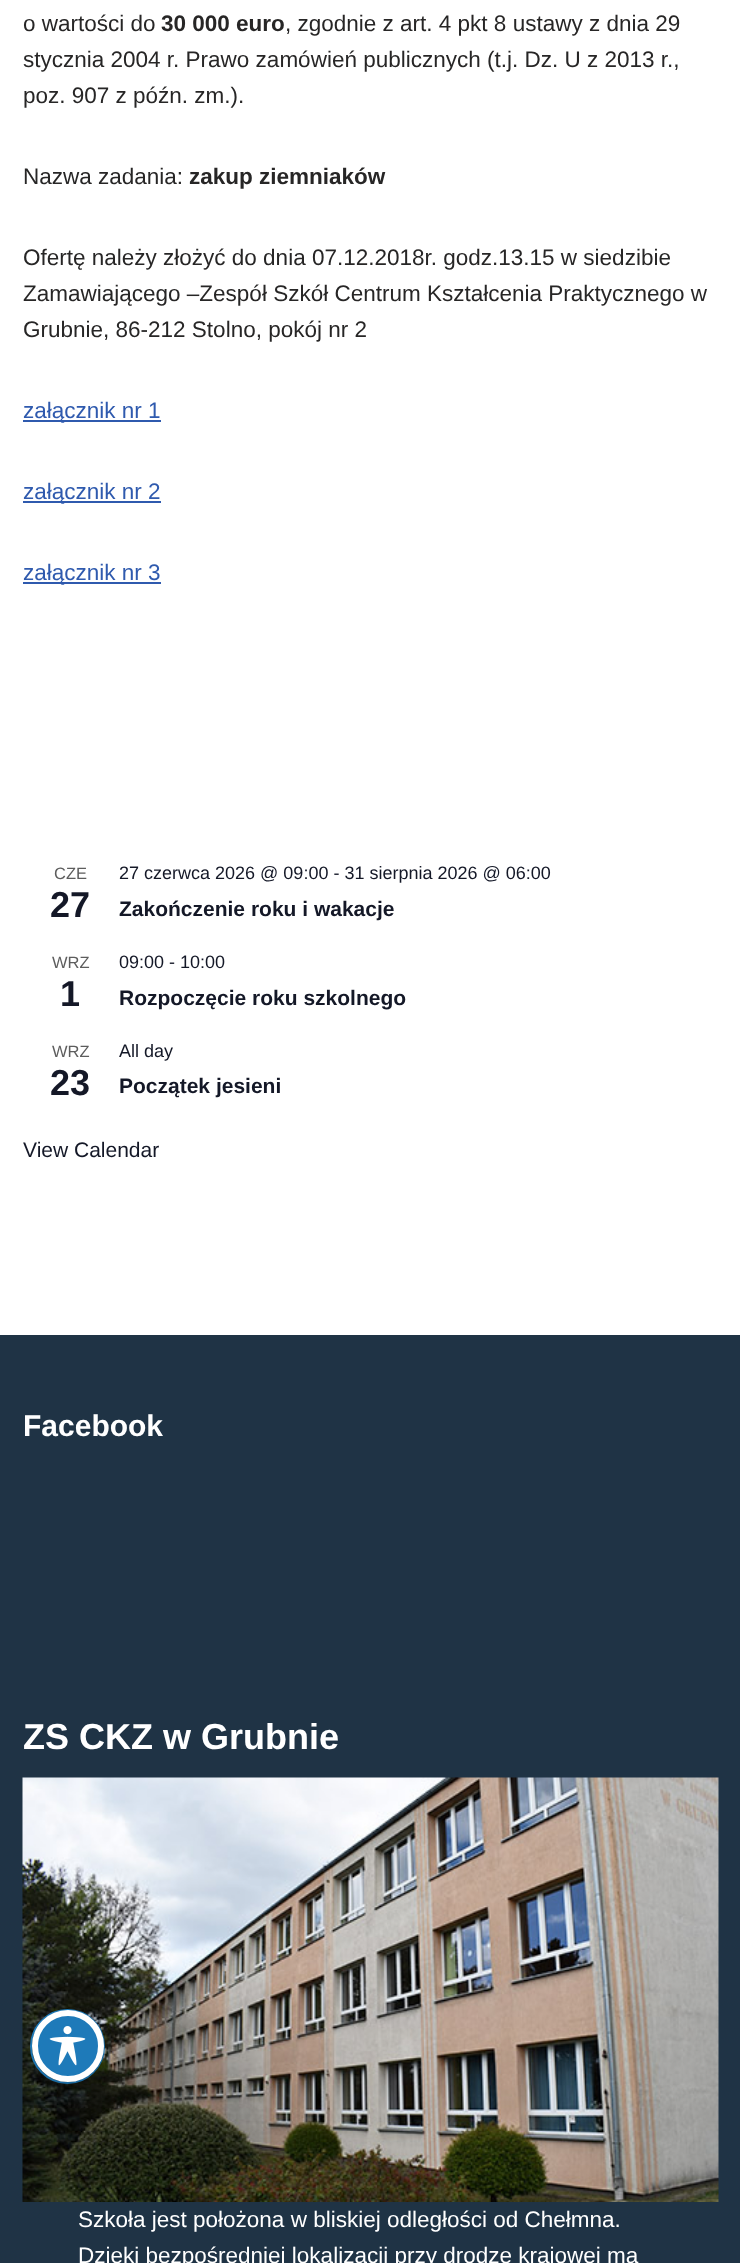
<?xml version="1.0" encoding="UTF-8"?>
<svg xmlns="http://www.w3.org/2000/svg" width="740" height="2263">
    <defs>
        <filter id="blur1" x="-50%" y="-200%" width="200%" height="500%"><feGaussianBlur stdDeviation="12"/></filter>
    </defs>
    <rect width="100%" height="100%" fill="#FFFFFF"/>
    <text x="23" y="31" font-family="Liberation Sans" font-size="22.5" fill="#272626">o wartości do</text>
    <text x="161" y="31" font-family="Liberation Sans" font-size="22.5" font-weight="700" fill="#272626">30 000 euro</text>
    <text x="285" y="31" font-family="Liberation Sans" font-size="22.5" fill="#272626">, zgodnie z art. 4 pkt 8 ustawy z dnia 29</text>
    <text font-family="Liberation Sans" font-size="22.5" fill="#272626">
        <tspan x="23" y="67">stycznia 2004 r. Prawo zamówień publicznych (t.j. Dz. U z 2013 r.,</tspan>
        <tspan x="23" y="103">poz. 907 z późn. zm.).</tspan>
    </text>
    <text x="23" y="184" font-family="Liberation Sans" font-size="22.5" fill="#272626">Nazwa zadania:</text>
    <text x="189" y="184" font-family="Liberation Sans" font-size="22.5" font-weight="700" fill="#272626">zakup ziemniaków</text>
    <text font-family="Liberation Sans" font-size="22.5" fill="#272626">
        <tspan x="23" y="265">Ofertę należy złożyć do dnia 07.12.2018r. godz.13.15 w siedzibie</tspan>
        <tspan x="23" y="301">Zamawiającego –Zespół Szkół Centrum Kształcenia Praktycznego w</tspan>
        <tspan x="23" y="337">Grubnie, 86-212 Stolno, pokój nr 2</tspan>
    </text>
    <rect x="23" y="420" width="138" height="2" fill="#2F5AAE"/>
    <text x="23" y="418" font-family="Liberation Sans" font-size="22.5" fill="#2F5AAE">załącznik nr 1</text>
    <rect x="23" y="501" width="138" height="2" fill="#2F5AAE"/>
    <text x="23" y="499" font-family="Liberation Sans" font-size="22.5" fill="#2F5AAE">załącznik nr 2</text>
    <rect x="23" y="582" width="138" height="2" fill="#2F5AAE"/>
    <text x="23" y="580" font-family="Liberation Sans" font-size="22.5" fill="#2F5AAE">załącznik nr 3</text>
    <text x="54" y="879" font-family="Liberation Sans" font-size="16.5" fill="#5D5D5D">CZE</text>
    <text x="50" y="917" font-family="Liberation Sans" font-size="36" font-weight="700" fill="#141827">27</text>
    <text x="119" y="879" font-family="Liberation Sans" font-size="18" fill="#141827">27 czerwca 2026 @ 09:00 - 31 sierpnia 2026 @ 06:00</text>
    <text x="119" y="916" font-family="Liberation Sans" font-size="21" font-weight="700" fill="#141827">Zakończenie roku i wakacje</text>
    <text x="52" y="968" font-family="Liberation Sans" font-size="16.5" fill="#5D5D5D">WRZ</text>
    <text x="60" y="1006" font-family="Liberation Sans" font-size="36" font-weight="700" fill="#141827">1</text>
    <text x="119" y="968" font-family="Liberation Sans" font-size="18" fill="#141827">09:00 - 10:00</text>
    <text x="119" y="1005" font-family="Liberation Sans" font-size="21" font-weight="700" fill="#141827">Rozpoczęcie roku szkolnego</text>
    <text x="52" y="1057" font-family="Liberation Sans" font-size="16.5" fill="#5D5D5D">WRZ</text>
    <text x="50" y="1095" font-family="Liberation Sans" font-size="36" font-weight="700" fill="#141827">23</text>
    <text x="119" y="1057" font-family="Liberation Sans" font-size="18" fill="#141827">All day</text>
    <text x="119" y="1093" font-family="Liberation Sans" font-size="21" font-weight="700" fill="#141827">Początek jesieni</text>
    <text x="23" y="1157" font-family="Liberation Sans" font-size="21" fill="#141827">View Calendar</text>
    <rect x="0" y="1335" width="740" height="928" fill="#1F3345"/>
    <text x="23" y="1436" font-family="Liberation Sans" font-size="30" font-weight="700" fill="#FFFFFF">Facebook</text>
    <text x="23" y="1749" font-family="Liberation Sans" font-size="36" font-weight="700" fill="#FFFFFF">ZS CKZ w Grubnie</text>
    <image x="22" y="1777" width="697" height="425" href="img_01.png"/>
    <text font-family="Liberation Sans" font-size="22.5" fill="#FFFFFF">
        <tspan x="78" y="2227">Szkoła jest położona w bliskiej odległości od Chełmna.</tspan>
        <tspan x="78" y="2263">Dzięki bezpośredniej lokalizacji przy drodze krajowej ma</tspan>
    </text>
    <circle cx="67.5" cy="2046.5" r="36.5" fill="none" stroke="#1E7AB9" stroke-width="2"/>
    <rect x="41" y="2022" width="72" height="72" rx="36" fill="#000000" fill-opacity="0.2" filter="url(#blur1)"/>
    <circle cx="68" cy="2046" r="33" fill="#1E7AB9" stroke="#FFFFFF" stroke-width="6"/>
    <image x="49" y="2026" width="37" height="40" href="img_02.png"/>
</svg>
